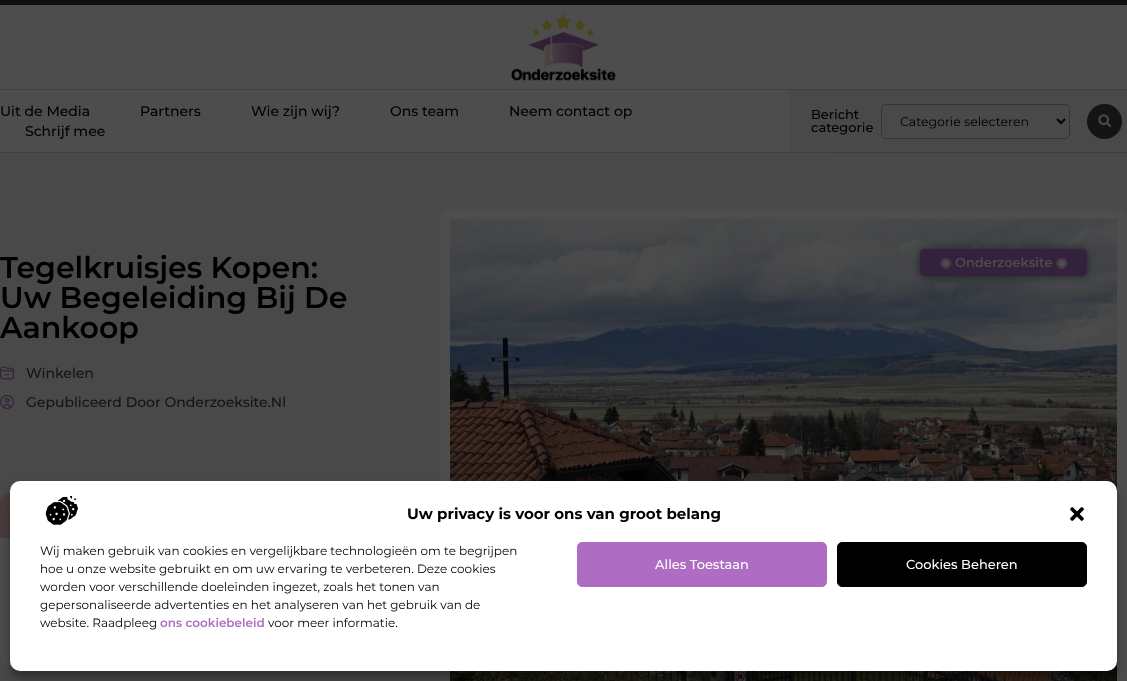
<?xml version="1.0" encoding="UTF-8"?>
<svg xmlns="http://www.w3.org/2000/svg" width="1127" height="681">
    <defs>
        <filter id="blur1" x="-50%" y="-200%" width="200%" height="500%"><feGaussianBlur stdDeviation="5"/></filter>
        <filter id="blur2" x="-50%" y="-200%" width="200%" height="500%"><feGaussianBlur stdDeviation="3"/></filter>
        <filter id="blur3" x="-50%" y="-200%" width="200%" height="500%"><feGaussianBlur stdDeviation="10"/></filter>
    </defs>
    <rect width="100%" height="100%" fill="#4D4D4D"/>
    <rect x="0" y="152" width="834" height="1" fill="#404040"/>
    <rect x="0" y="0" width="1127" height="5" fill="#0F0F0F"/>
    <rect x="0" y="89" width="1127" height="1" fill="#404040"/>
    <image x="511" y="13" width="105" height="68" href="img_01.png"/>
    <rect x="834" y="152" width="293" height="1" fill="#3C3C3C"/>
    <text x="0" y="116" font-family="Montserrat" font-size="14" font-weight="500" fill="#000000">Uit de Media</text>
    <text x="140" y="116" font-family="Montserrat" font-size="14" font-weight="500" fill="#000000">Partners</text>
    <text x="251" y="116" font-family="Montserrat" font-size="14" font-weight="500" fill="#000000">Wie zijn wij?</text>
    <text x="390" y="116" font-family="Montserrat" font-size="14" font-weight="500" fill="#000000">Ons team</text>
    <text x="509" y="116" font-family="Montserrat" font-size="14" font-weight="500" fill="#000000">Neem contact op</text>
    <text x="25" y="136" font-family="Montserrat" font-size="14" font-weight="500" fill="#000000">Schrijf mee</text>
    <rect x="789" y="90" width="338" height="62" fill="#494949"/>
    <text font-family="Montserrat" font-size="13" font-weight="500" fill="#000000">
        <tspan x="811" y="119">Bericht</tspan>
        <tspan x="811" y="132">categorie</tspan>
    </text>
    <rect x="881.5" y="104.5" width="188" height="34" rx="4.5" fill="none" stroke="#353535"/>
    <path d="M 1057 119 L 1061 123 L 1065 119" fill="none" stroke="#000000" stroke-width="2"/>
    <text x="900" y="126" font-family="Montserrat" font-size="12.5" fill="#000000">Categorie selecteren</text>
    <circle cx="1104.5" cy="121.5" r="17.5" fill="#141414"/>
    <image x="1098" y="114" width="13" height="13" href="img_02.png"/>
    <rect x="0" y="153" width="1127" height="528" fill="#494949"/>
    <text font-family="Montserrat" font-size="30" font-weight="600" fill="#000000">
        <tspan x="0" y="278">Tegelkruisjes Kopen:</tspan>
        <tspan x="0" y="308">Uw Begeleiding Bij De</tspan>
        <tspan x="0" y="338">Aankoop</tspan>
    </text>
    <image x="0" y="366" width="14" height="14" href="img_03.png"/>
    <text x="26" y="378" font-family="Montserrat" font-size="14" font-weight="500" fill="#141414">Winkelen</text>
    <image x="0" y="395" width="14" height="14" href="img_04.png"/>
    <text x="26" y="407" font-family="Montserrat" font-size="14" font-weight="500" fill="#141414">Gepubliceerd Door Onderzoeksite.Nl</text>
    <rect x="0" y="493" width="311" height="173" rx="10" fill="#4D4D4D"/>
    <path d="M 10 493 H 301 C 306.5 493 311 497.5 311 503 V 538 H 0 V 503 C 0 497.5 4.5 493 10 493 Z" fill="#4B3C3C"/>
    <rect x="445" y="214" width="677" height="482" rx="5" fill="none" stroke="#4D4D4D" stroke-width="10"/>
    <image x="450" y="219" width="667" height="462" href="img_05.png"/>
    <rect x="920" y="249" width="167" height="27" rx="5" fill="#000000" fill-opacity="0.5" filter="url(#blur1)"/>
    <rect x="920" y="249" width="167" height="27" rx="5" fill="#34213B"/>
    <text x="940" y="267" font-family="DejaVu Sans" font-size="13" font-weight="700" fill="#4D4D4D">◉</text>
    <text x="955" y="267" font-family="Montserrat" font-size="13" font-weight="600" fill="#4D4D4D">Onderzoeksite</text>
    <text x="1056" y="267" font-family="DejaVu Sans" font-size="13" font-weight="700" fill="#4D4D4D">◉</text>
    <rect x="10" y="487" width="1107" height="190" rx="10" fill="#000000" fill-opacity="0.23" filter="url(#blur2)"/>
    <rect x="10" y="491" width="1107" height="190" rx="10" fill="#000000" fill-opacity="0.19" filter="url(#blur3)"/>
    <rect x="10" y="481" width="1107" height="190" rx="10" fill="#FFFFFF"/>
    <image x="45" y="496" width="33" height="29" href="img_06.png"/>
    <text x="407" y="519" font-family="Montserrat" font-size="15" font-weight="700" fill="#000000">Uw privacy is voor ons van groot belang</text>
    <image x="1070" y="507" width="14" height="14" href="img_07.png"/>
    <text font-family="Montserrat" font-size="12" fill="#000000">
        <tspan x="40" y="555">Wij maken gebruik van cookies en vergelijkbare technologieën om te begrijpen</tspan>
        <tspan x="40" y="573">hoe u onze website gebruikt en om uw ervaring te verbeteren. Deze cookies</tspan>
        <tspan x="40" y="591">worden voor verschillende doeleinden ingezet, zoals het tonen van</tspan>
        <tspan x="40" y="609">gepersonaliseerde advertenties en het analyseren van het gebruik van de</tspan>
        <tspan x="40" y="627">website. Raadpleeg</tspan>
    </text>
    <text x="160" y="627" font-family="Montserrat" font-size="12" font-weight="600" fill="#AE6DC3">ons cookiebeleid</text>
    <text x="268" y="627" font-family="Montserrat" font-size="12" fill="#000000">voor meer informatie.</text>
    <rect x="577.5" y="542.5" width="249" height="44" rx="4.5" fill="#AE6DC3" stroke="#AE6DC3"/>
    <text x="655" y="569" font-family="Montserrat" font-size="13" font-weight="500" fill="#FFFFFF">Alles Toestaan</text>
    <rect x="837.5" y="542.5" width="249" height="44" rx="4.5" fill="#000000" stroke="#000000"/>
    <text x="906" y="569" font-family="Montserrat" font-size="13" font-weight="500" fill="#FFFFFF">Cookies Beheren</text>
</svg>
